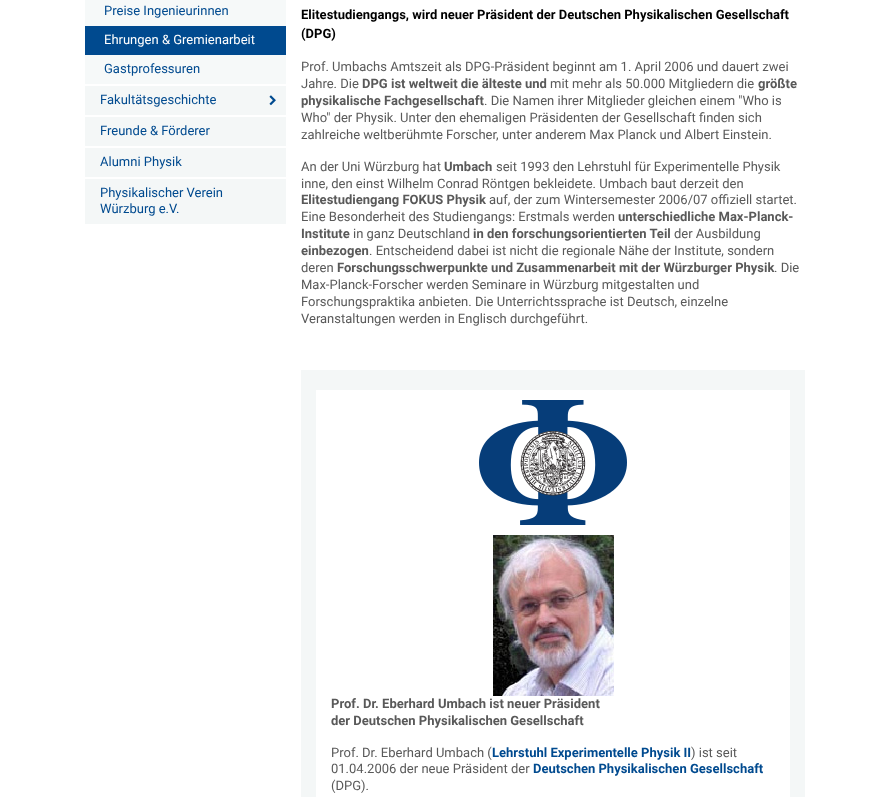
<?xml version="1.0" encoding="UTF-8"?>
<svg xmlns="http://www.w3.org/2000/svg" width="890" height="797">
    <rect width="100%" height="100%" fill="#FFFFFF"/>
    <rect x="85" y="0" width="201" height="26" fill="#F6F9F9"/>
    <text x="104" y="15" font-family="Roboto" font-size="13" fill="#004A8F">Preise Ingenieurinnen</text>
    <rect x="85" y="26" width="201" height="29" fill="#004A8F"/>
    <text x="104" y="44" font-family="Roboto" font-size="13" fill="#FFFFFF">Ehrungen &amp; Gremienarbeit</text>
    <rect x="85" y="55" width="201" height="29" fill="#F6F9F9"/>
    <text x="104" y="73" font-family="Roboto" font-size="13" fill="#004A8F">Gastprofessuren</text>
    <rect x="85" y="86" width="201" height="29" fill="#F4F7F7"/>
    <text x="100" y="104" font-family="Roboto" font-size="13" fill="#004A8F">Fakultätsgeschichte</text>
    <image x="269" y="95" width="7" height="11" href="img_01.png"/>
    <rect x="85" y="117" width="201" height="29" fill="#F4F7F7"/>
    <text x="100" y="135" font-family="Roboto" font-size="13" fill="#004A8F">Freunde &amp; Förderer</text>
    <rect x="85" y="148" width="201" height="29" fill="#F4F7F7"/>
    <text x="100" y="166" font-family="Roboto" font-size="13" fill="#004A8F">Alumni Physik</text>
    <rect x="85" y="179" width="201" height="45" fill="#F4F7F7"/>
    <text font-family="Roboto" font-size="13" fill="#004A8F">
        <tspan x="100" y="197">Physikalischer Verein</tspan>
        <tspan x="100" y="213">Würzburg e.V.</tspan>
    </text>
    <text font-family="Roboto" font-size="13" font-weight="700" fill="#000000">
        <tspan x="301" y="19">Elitestudiengangs, wird neuer Präsident der Deutschen Physikalischen Gesellschaft</tspan>
        <tspan x="301" y="38">(DPG)</tspan>
    </text>
    <text font-family="Roboto" font-size="13" fill="#595959">
        <tspan x="301" y="71">Prof. Umbachs Amtszeit als DPG-Präsident beginnt am 1. April 2006 und dauert zwei</tspan>
        <tspan x="301" y="88">Jahre. Die</tspan>
    </text>
    <text x="362" y="88" font-family="Roboto" font-size="13" font-weight="700" fill="#595959">DPG ist weltweit die älteste und</text>
    <text x="550" y="88" font-family="Roboto" font-size="13" fill="#595959">mit mehr als 50.000 Mitgliedern die</text>
    <text x="758" y="88" font-family="Roboto" font-size="13" font-weight="700" fill="#595959">größte</text>
    <text x="301" y="105" font-family="Roboto" font-size="13" font-weight="700" fill="#595959">physikalische Fachgesellschaft</text>
    <text x="484" y="105" font-family="Roboto" font-size="13" fill="#595959">. Die Namen ihrer Mitglieder gleichen einem "Who is</text>
    <text font-family="Roboto" font-size="13" fill="#595959">
        <tspan x="301" y="122">Who" der Physik. Unter den ehemaligen Präsidenten der Gesellschaft finden sich</tspan>
        <tspan x="301" y="139">zahlreiche weltberühmte Forscher, unter anderem Max Planck und Albert Einstein.</tspan>
    </text>
    <text x="301" y="171" font-family="Roboto" font-size="13" fill="#595959">An der Uni Würzburg hat</text>
    <text x="444" y="171" font-family="Roboto" font-size="13" font-weight="700" fill="#595959">Umbach</text>
    <text x="496" y="171" font-family="Roboto" font-size="13" fill="#595959">seit 1993 den Lehrstuhl für Experimentelle Physik</text>
    <text x="301" y="188" font-family="Roboto" font-size="13" fill="#595959">inne, den einst Wilhelm Conrad Röntgen bekleidete. Umbach baut derzeit den</text>
    <text x="301" y="204" font-family="Roboto" font-size="13" font-weight="700" fill="#595959">Elitestudiengang FOKUS Physik</text>
    <text x="489" y="204" font-family="Roboto" font-size="13" fill="#595959">auf, der zum Wintersemester 2006/07 offiziell startet.</text>
    <text x="301" y="221" font-family="Roboto" font-size="13" fill="#595959">Eine Besonderheit des Studiengangs: Erstmals werden</text>
    <text x="618" y="221" font-family="Roboto" font-size="13" font-weight="700" fill="#595959">unterschiedliche Max-Planck-</text>
    <text x="301" y="238" font-family="Roboto" font-size="13" font-weight="700" fill="#595959">Institute</text>
    <text x="353" y="238" font-family="Roboto" font-size="13" fill="#595959">in ganz Deutschland</text>
    <text x="473" y="238" font-family="Roboto" font-size="13" font-weight="700" fill="#595959">in den forschungsorientierten Teil</text>
    <text x="674" y="238" font-family="Roboto" font-size="13" fill="#595959">der Ausbildung</text>
    <text x="301" y="255" font-family="Roboto" font-size="13" font-weight="700" fill="#595959">einbezogen</text>
    <text x="369" y="255" font-family="Roboto" font-size="13" fill="#595959">. Entscheidend dabei ist nicht die regionale Nähe der Institute, sondern</text>
    <text x="301" y="272" font-family="Roboto" font-size="13" fill="#595959">deren</text>
    <text x="337" y="272" font-family="Roboto" font-size="13" font-weight="700" fill="#595959">Forschungsschwerpunkte und Zusammenarbeit mit der Würzburger Physik</text>
    <text x="774" y="272" font-family="Roboto" font-size="13" fill="#595959">. Die</text>
    <text font-family="Roboto" font-size="13" fill="#595959">
        <tspan x="301" y="289">Max-Planck-Forscher werden Seminare in Würzburg mitgestalten und</tspan>
        <tspan x="301" y="306">Forschungspraktika anbieten. Die Unterrichtssprache ist Deutsch, einzelne</tspan>
        <tspan x="301" y="323">Veranstaltungen werden in Englisch durchgeführt.</tspan>
    </text>
    <rect x="316" y="370" width="474" height="20" fill="#F4F7F7"/>
    <rect x="790" y="370" width="15" height="427" fill="#F4F7F7"/>
    <rect x="301" y="370" width="15" height="427" fill="#F4F7F7"/>
    <image x="479" y="400" width="148" height="125" href="img_02.png"/>
    <image x="493" y="535" width="121" height="161" href="img_03.png"/>
    <text font-family="Roboto" font-size="13" font-weight="700" fill="#595959">
        <tspan x="331" y="708">Prof. Dr. Eberhard Umbach ist neuer Präsident</tspan>
        <tspan x="331" y="725">der Deutschen Physikalischen Gesellschaft</tspan>
    </text>
    <text x="331" y="757" font-family="Roboto" font-size="13" fill="#595959">Prof. Dr. Eberhard Umbach (</text>
    <text x="492" y="757" font-family="Roboto" font-size="13" font-weight="700" fill="#004A8F">Lehrstuhl Experimentelle Physik II</text>
    <text x="691" y="757" font-family="Roboto" font-size="13" fill="#595959">) ist seit</text>
    <text x="331" y="773" font-family="Roboto" font-size="13" fill="#595959">01.04.2006 der neue Präsident der</text>
    <text x="533" y="773" font-family="Roboto" font-size="13" font-weight="700" fill="#004A8F">Deutschen Physikalischen Gesellschaft</text>
    <text x="331" y="790" font-family="Roboto" font-size="13" fill="#595959">(DPG).</text>
</svg>
